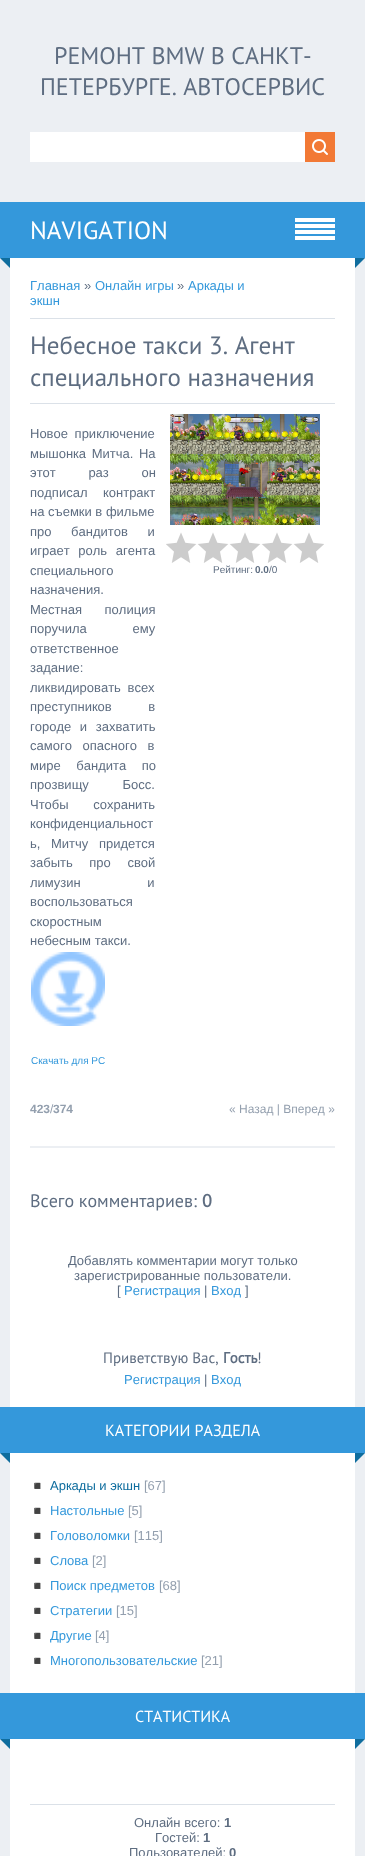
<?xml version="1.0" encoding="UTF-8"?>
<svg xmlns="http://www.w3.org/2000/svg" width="365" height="1856">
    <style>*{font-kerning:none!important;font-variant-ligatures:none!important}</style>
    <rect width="100%" height="100%" fill="#ECEFF3"/>
    <text x="54" y="64" font-family="PT Sans" font-size="24" fill="#5E6D81">РЕМОНТ BMW В САНКТ-</text>
    <text x="40" y="95" font-family="PT Sans" font-size="24" fill="#5E6D81">ПЕТЕРБУРГЕ. АВТОСЕРВИС</text>
    <rect x="30" y="132" width="275" height="30" fill="#FFFFFF"/>
    <rect x="305" y="132" width="30" height="30" fill="#F27935"/>
    <image x="312" y="139" width="16" height="16" href="img_01.png"/>
    <rect x="0" y="202" width="365" height="56" fill="#3498DB"/>
    <text x="30" y="239" font-family="PT Sans" font-size="25" fill="#FFFFFF">NAVIGATION</text>
    <rect x="295" y="218" width="40" height="4" fill="#FFFFFF"/>
    <rect x="295" y="224" width="40" height="4" fill="#FFFFFF"/>
    <rect x="295" y="230" width="40" height="4" fill="#FFFFFF"/>
    <rect x="295" y="236" width="40" height="4" fill="#FFFFFF"/>
    <path d="M 0 258 H 10 V 268 Z" fill="#0F6D9E"/>
    <path d="M 355 258 H 365 L 355 268 Z" fill="#0F6D9E"/>
    <rect x="10" y="258" width="345" height="1598" fill="#FFFFFF"/>
    <text x="30" y="290" font-family="Liberation Sans" font-size="13" fill="#3498DB">Главная</text>
    <text x="84" y="290" font-family="Liberation Sans" font-size="13" fill="#5E6D81">»</text>
    <text x="95" y="290" font-family="Liberation Sans" font-size="13" fill="#3498DB">Онлайн игры</text>
    <text x="177" y="290" font-family="Liberation Sans" font-size="13" fill="#5E6D81">»</text>
    <text x="188" y="290" font-family="Liberation Sans" font-size="13" fill="#3498DB">Аркады и</text>
    <text x="30" y="305" font-family="Liberation Sans" font-size="13" fill="#3498DB">экшн</text>
    <rect x="30" y="318" width="305" height="1" fill="#DBE1E8"/>
    <text font-family="PT Sans" font-size="25" fill="#5E6D81">
        <tspan x="30" y="354">Небесное такси 3. Агент</tspan>
        <tspan x="30" y="386">специального назначения</tspan>
    </text>
    <rect x="30" y="403" width="305" height="1" fill="#DBE1E8"/>
    <rect x="30" y="1146" width="305" height="2" fill="#ECEFF3"/>
    <text font-family="Liberation Sans" font-size="13" fill="#5E6D81">
        <tspan x="30" y="438" word-spacing="3">Новое приключение</tspan>
        <tspan x="30" y="458" word-spacing="2">мышонка Митча. На</tspan>
        <tspan x="30" y="477" word-spacing="29">этот раз он</tspan>
        <tspan x="30" y="497" word-spacing="12">подписал контракт</tspan>
        <tspan x="30" y="516">на съемки в фильме</tspan>
        <tspan x="30" y="536" word-spacing="16">про бандитов и</tspan>
        <tspan x="30" y="555" word-spacing="5">играет роль агента</tspan>
        <tspan x="30" y="575">специального</tspan>
        <tspan x="30" y="594">назначения.</tspan>
        <tspan x="30" y="614" word-spacing="19">Местная полиция</tspan>
        <tspan x="30" y="633" word-spacing="42">поручила ему</tspan>
        <tspan x="30" y="653">ответственное</tspan>
        <tspan x="30" y="672">задание:</tspan>
        <tspan x="30" y="692" word-spacing="3">ликвидировать всех</tspan>
        <tspan x="30" y="711" word-spacing="33">преступников в</tspan>
        <tspan x="30" y="731" word-spacing="5">городе и захватить</tspan>
        <tspan x="30" y="750" word-spacing="7">самого опасного в</tspan>
        <tspan x="30" y="770" word-spacing="12">мире бандита по</tspan>
        <tspan x="30" y="789" word-spacing="30">прозвищу Босс.</tspan>
        <tspan x="30" y="809" word-spacing="21">Чтобы сохранить</tspan>
        <tspan x="30" y="828">конфиденциальност</tspan>
        <tspan x="30" y="848" word-spacing="7">ь, Митчу придется</tspan>
        <tspan x="30" y="867" word-spacing="13">забыть про свой</tspan>
        <tspan x="30" y="887" word-spacing="63">лимузин и</tspan>
        <tspan x="30" y="906">воспользоваться</tspan>
        <tspan x="30" y="926">скоростным</tspan>
        <tspan x="30" y="945">небесным такси.</tspan>
    </text>
    <image x="31" y="952" width="74" height="74" href="img_02.png"/>
    <text x="31" y="1064" font-family="Liberation Sans" font-size="10" fill="#3498DB">Скачать для PC</text>
    <image x="170" y="414" width="150" height="111" href="img_03.png"/>
    <image x="166" y="532" width="158" height="31" href="img_04.png"/>
    <text x="213" y="573" font-family="Liberation Sans" font-size="10" fill="#5E6D81">Рейтинг:</text>
    <text x="255" y="573" font-family="Liberation Sans" font-size="10" font-weight="700" fill="#5E6D81">0.0</text>
    <text x="269" y="573" font-family="Liberation Sans" font-size="10" fill="#5E6D81">/0</text>
    <text x="30" y="1113" font-family="Liberation Sans" font-size="12" font-weight="700" fill="#939FAE">423</text>
    <text x="50" y="1113" font-family="Liberation Sans" font-size="12" fill="#939FAE">/</text>
    <text x="53" y="1113" font-family="Liberation Sans" font-size="12" font-weight="700" fill="#939FAE">374</text>
    <text x="229" y="1113" font-family="Liberation Sans" font-size="12" fill="#939FAE">« Назад | Вперед »</text>
    <text x="30" y="1207" font-family="PT Sans" font-size="18" fill="#5E6D81">Всего комментариев:</text>
    <text x="202" y="1207" font-family="PT Sans" font-size="18" font-weight="700" fill="#5E6D81">0</text>
    <text x="68" y="1265" font-family="Liberation Sans" font-size="13" fill="#5E6D81">Добавлять комментарии могут только</text>
    <text x="74" y="1280" font-family="Liberation Sans" font-size="13" fill="#5E6D81">зарегистрированные пользователи.</text>
    <text x="117" y="1295" font-family="Liberation Sans" font-size="13" fill="#5E6D81">[</text>
    <text x="124" y="1295" font-family="Liberation Sans" font-size="13" fill="#3498DB">Регистрация</text>
    <text x="204" y="1295" font-family="Liberation Sans" font-size="13" fill="#5E6D81">|</text>
    <text x="211" y="1295" font-family="Liberation Sans" font-size="13" fill="#3498DB">Вход</text>
    <text x="245" y="1295" font-family="Liberation Sans" font-size="13" fill="#5E6D81">]</text>
    <text x="103" y="1363" font-family="PT Sans" font-size="15" fill="#5E6D81">Приветствую Вас,</text>
    <text x="223" y="1363" font-family="PT Sans" font-size="15" font-weight="700" fill="#5E6D81">Гость</text>
    <text x="257" y="1363" font-family="PT Sans" font-size="15" fill="#5E6D81">!</text>
    <text x="124" y="1384" font-family="Liberation Sans" font-size="13" fill="#3498DB">Регистрация</text>
    <text x="204" y="1384" font-family="Liberation Sans" font-size="13" fill="#5E6D81">|</text>
    <text x="211" y="1384" font-family="Liberation Sans" font-size="13" fill="#3498DB">Вход</text>
    <rect x="0" y="1407" width="365" height="46" fill="#3498DB"/>
    <text x="105" y="1436" font-family="PT Sans" font-size="16" fill="#FFFFFF">КАТЕГОРИИ РАЗДЕЛА</text>
    <path d="M 0 1453 H 10 V 1463 Z" fill="#0F6D9E"/>
    <path d="M 355 1453 H 365 L 355 1463 Z" fill="#0F6D9E"/>
    <text x="30" y="1490" font-family="Noto Color Emoji" font-size="12" fill="#939FAE">◾</text>
    <text x="50" y="1490" font-family="Liberation Sans" font-size="13" fill="#0F6D9E">Аркады и экшн</text>
    <text x="144" y="1490" font-family="Liberation Sans" font-size="13" fill="#939FAE">[67]</text>
    <text x="30" y="1515" font-family="Noto Color Emoji" font-size="12" fill="#DADDDF">◾</text>
    <text x="50" y="1515" font-family="Liberation Sans" font-size="13" fill="#3498DB">Настольные</text>
    <text x="128" y="1515" font-family="Liberation Sans" font-size="13" fill="#939FAE">[5]</text>
    <text x="30" y="1540" font-family="Noto Color Emoji" font-size="12" fill="#DADDDF">◾</text>
    <text x="50" y="1540" font-family="Liberation Sans" font-size="13" fill="#3498DB">Головоломки</text>
    <text x="134" y="1540" font-family="Liberation Sans" font-size="13" fill="#939FAE">[115]</text>
    <text x="30" y="1565" font-family="Noto Color Emoji" font-size="12" fill="#DADDDF">◾</text>
    <text x="50" y="1565" font-family="Liberation Sans" font-size="13" fill="#3498DB">Слова</text>
    <text x="92" y="1565" font-family="Liberation Sans" font-size="13" fill="#939FAE">[2]</text>
    <text x="30" y="1590" font-family="Noto Color Emoji" font-size="12" fill="#DADDDF">◾</text>
    <text x="50" y="1590" font-family="Liberation Sans" font-size="13" fill="#3498DB">Поиск предметов</text>
    <text x="159" y="1590" font-family="Liberation Sans" font-size="13" fill="#939FAE">[68]</text>
    <text x="30" y="1615" font-family="Noto Color Emoji" font-size="12" fill="#DADDDF">◾</text>
    <text x="50" y="1615" font-family="Liberation Sans" font-size="13" fill="#3498DB">Стратегии</text>
    <text x="116" y="1615" font-family="Liberation Sans" font-size="13" fill="#939FAE">[15]</text>
    <text x="30" y="1640" font-family="Noto Color Emoji" font-size="12" fill="#DADDDF">◾</text>
    <text x="50" y="1640" font-family="Liberation Sans" font-size="13" fill="#3498DB">Другие</text>
    <text x="95" y="1640" font-family="Liberation Sans" font-size="13" fill="#939FAE">[4]</text>
    <text x="30" y="1665" font-family="Noto Color Emoji" font-size="12" fill="#DADDDF">◾</text>
    <text x="50" y="1665" font-family="Liberation Sans" font-size="13" fill="#3498DB">Многопользовательские</text>
    <text x="201" y="1665" font-family="Liberation Sans" font-size="13" fill="#939FAE">[21]</text>
    <rect x="0" y="1693" width="365" height="46" fill="#3498DB"/>
    <text x="135" y="1722" font-family="PT Sans" font-size="16" fill="#FFFFFF">СТАТИСТИКА</text>
    <path d="M 0 1739 H 10 V 1749 Z" fill="#0F6D9E"/>
    <path d="M 355 1739 H 365 L 355 1749 Z" fill="#0F6D9E"/>
    <rect x="30" y="1804" width="305" height="1" fill="#DBE1E8"/>
    <text x="134" y="1827" font-family="Liberation Sans" font-size="13" fill="#5E6D81">Онлайн всего:</text>
    <text x="224" y="1827" font-family="Liberation Sans" font-size="13" font-weight="700" fill="#5E6D81">1</text>
    <text x="155" y="1842" font-family="Liberation Sans" font-size="13" fill="#5E6D81">Гостей:</text>
    <text x="203" y="1842" font-family="Liberation Sans" font-size="13" font-weight="700" fill="#5E6D81">1</text>
    <text x="129" y="1857" font-family="Liberation Sans" font-size="13" fill="#5E6D81">Пользователей:</text>
    <text x="229" y="1857" font-family="Liberation Sans" font-size="13" font-weight="700" fill="#5E6D81">0</text>
</svg>
